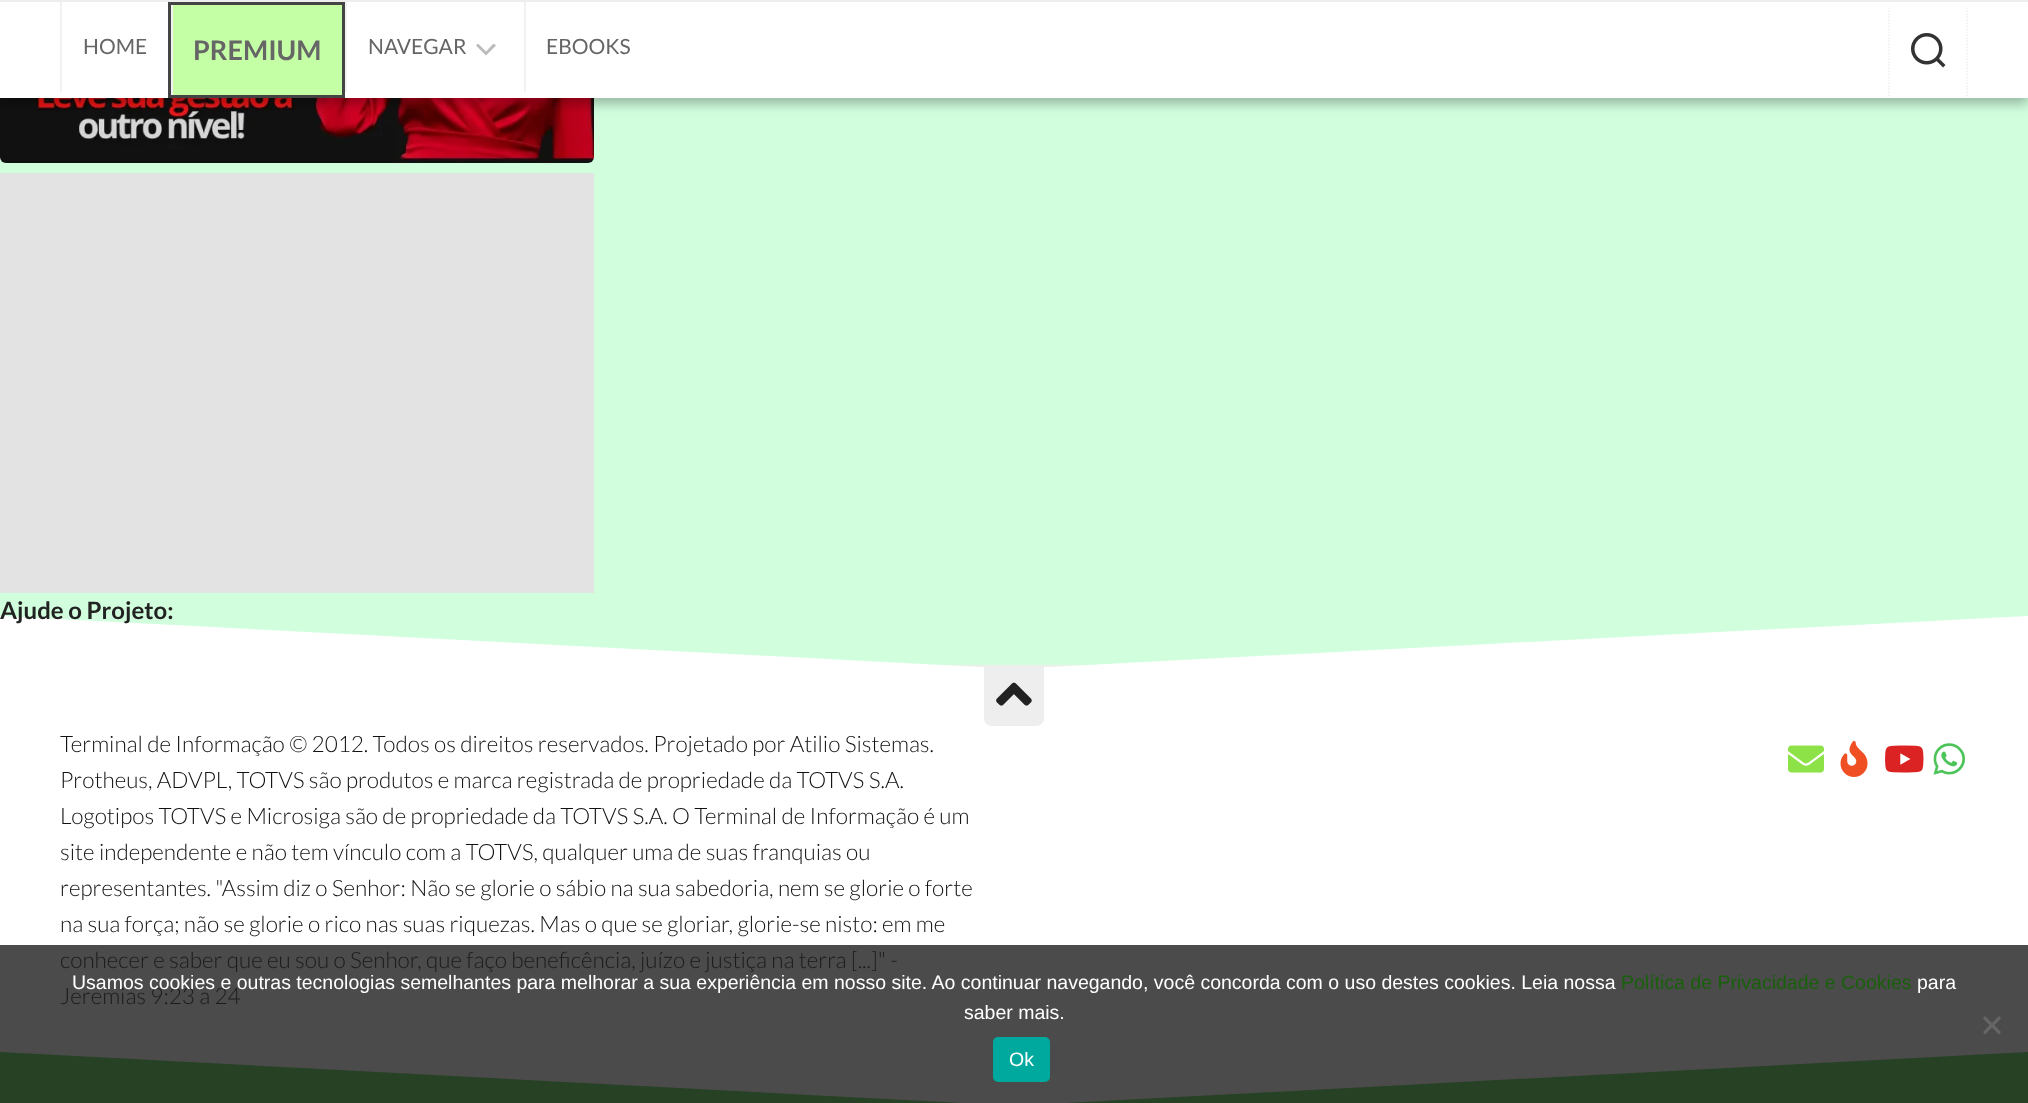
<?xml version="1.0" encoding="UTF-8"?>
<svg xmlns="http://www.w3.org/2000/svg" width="2028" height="1103">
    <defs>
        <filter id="blur1" x="-50%" y="-200%" width="200%" height="500%"><feGaussianBlur stdDeviation="6"/></filter>
        <clipPath id="clip1"><rect x="476" y="44" width="21" height="12"/></clipPath>
    </defs>
    <rect width="100%" height="100%" fill="#D1FFDE"/>
    <image x="0" y="98" width="594" height="65" href="img_02.png"/>
    <rect x="0" y="6" width="2028" height="98" fill="#000000" fill-opacity="0.28" filter="url(#blur1)"/>
    <rect x="0" y="2" width="2028" height="96" fill="#FFFFFF"/>
    <rect x="0" y="0" width="2028" height="2" fill="#EEEEEE"/>
    <rect x="60" y="2" width="2" height="90" fill="#F2F2F2"/>
    <text x="83" y="54" font-family="Lato" font-size="21" fill="#666666">HOME</text>
    <rect x="173" y="5" width="169" height="90" fill="#C5FFA5"/>
    <rect x="169.5" y="3.5" width="174" height="93" fill="none" stroke="#444444" stroke-width="3"/>
    <rect x="171" y="5" width="2" height="90" fill="#F2F2F2"/>
    <text x="193" y="60" font-family="Lato" font-size="27" font-weight="700" fill="#666666">PREMIUM</text>
    <rect x="345" y="2" width="2" height="90" fill="#F2F2F2"/>
    <text x="368" y="54" font-family="Lato" font-size="21" fill="#666666">NAVEGAR</text>
    <g clip-path="url(#clip1)">
        <path d="M 486 51.5 L 493.5 43.5 L 496 45.5 L 486 55.5 L 476 45.5 L 478 43.5 Z" fill="#BBBBBB" fill-rule="evenodd"/>
    </g>
    <rect x="524" y="2" width="2" height="90" fill="#F2F2F2"/>
    <text x="546" y="54" font-family="Lato" font-size="21" fill="#666666">EBOOKS</text>
    <path d="M 1967 7.5 V 97.5" fill="none" stroke="#EEEEEE" stroke-width="1.5" stroke-dasharray="1.5 1.5"/>
    <path d="M 1889 7.5 V 97.5" fill="none" stroke="#EEEEEE" stroke-width="1.5" stroke-dasharray="1.5 1.5"/>
    <image x="1911" y="33" width="35" height="35" href="img_01.png"/>
    <rect x="0" y="173" width="594" height="420" fill="#E3E3E3"/>
    <rect x="0" y="667" width="2028" height="278" fill="#FFFFFF"/>
    <rect x="943" y="665" width="143" height="2" fill="#EEEEEE"/>
    <text x="60" y="752" font-family="Lato" font-size="22.5" font-weight="300" fill="#111111">Terminal de Informação © 2012. Todos os direitos reservados. Projetado por Atilio Sistemas.</text>
    <path d="M -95 611 L 1019 669 L 1015 741 L -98 683 Z" fill="#FFFFFF"/>
    <text x="0" y="619" font-family="Lato" font-size="24" font-weight="700" fill="#222222">Ajude o Projeto:</text>
    <rect x="0" y="945" width="2028" height="158" fill="#4B4B4B"/>
    <path d="M 1009 669 L 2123 611 L 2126 683 L 1013 741 Z" fill="#FFFFFF"/>
    <path d="M 984 666 H 1044 V 718 C 1044 722.5 1040.5 726 1036 726 H 992 C 987.5 726 984 722.5 984 718 Z" fill="#EEEEEE"/>
    <image x="996" y="682" width="36" height="24" href="img_03.png"/>
    <text font-family="Lato" font-size="22.5" font-weight="300" fill="#111111">
        <tspan x="60" y="788">Protheus, ADVPL, TOTVS são produtos e marca registrada de propriedade da TOTVS S.A.</tspan>
        <tspan x="60" y="824">Logotipos TOTVS e Microsiga são de propriedade da TOTVS S.A. O Terminal de Informação é um</tspan>
        <tspan x="60" y="860">site independente e não tem vínculo com a TOTVS, qualquer uma de suas franquias ou</tspan>
        <tspan x="60" y="896">representantes. "Assim diz o Senhor: Não se glorie o sábio na sua sabedoria, nem se glorie o forte</tspan>
        <tspan x="60" y="932">na sua força; não se glorie o rico nas suas riquezas. Mas o que se gloriar, glorie-se nisto: em me</tspan>
    </text>
    <text font-family="Lato" font-size="22.5" font-weight="300" fill="#1B1B1B">
        <tspan x="60" y="968">conhecer e saber que eu sou o Senhor, que faço beneficência, juízo e justiça na terra [...]" -</tspan>
        <tspan x="60" y="1004">Jeremias 9:23 a 24</tspan>
    </text>
    <image x="1788" y="745" width="36" height="28" href="img_04.png"/>
    <image x="1840" y="741" width="28" height="36" href="img_05.png"/>
    <image x="1885" y="745" width="39" height="28" href="img_06.png"/>
    <image x="1933" y="743" width="32" height="32" href="img_07.png"/>
    <path d="M -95 1047 L 1019 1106 L 1015 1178 L -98 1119 Z" fill="#274125"/>
    <path d="M 1009 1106 L 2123 1047 L 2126 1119 L 1013 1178 Z" fill="#274125"/>
    <text x="72" y="989" font-family="Liberation Sans" font-size="19.5" fill="#FFFFFF">Usamos cookies e outras tecnologias semelhantes para melhorar a sua experiência em nosso site. Ao continuar navegando, você concorda com o uso destes cookies. Leia nossa</text>
    <text x="1621" y="989" font-family="Liberation Sans" font-size="19.5" fill="#19600B">Política de Privacidade e Cookies</text>
    <text x="1917" y="989" font-family="Liberation Sans" font-size="19.5" fill="#FFFFFF">para</text>
    <text x="964" y="1019" font-family="Liberation Sans" font-size="19.5" fill="#FFFFFF">saber mais.</text>
    <path d="M 1999 1016 L 2001 1018.5 L 1985 1034.5 L 1983 1032 Z" fill="#666666"/>
    <path d="M 1983 1018.5 L 1985 1016 L 2001 1032 L 1999 1034.5 Z" fill="#666666"/>
    <rect x="993" y="1037" width="57" height="45" rx="5" fill="#00A99D"/>
    <text x="1009" y="1066" font-family="Liberation Sans" font-size="19.5" fill="#FFFFFF">Ok</text>
</svg>
